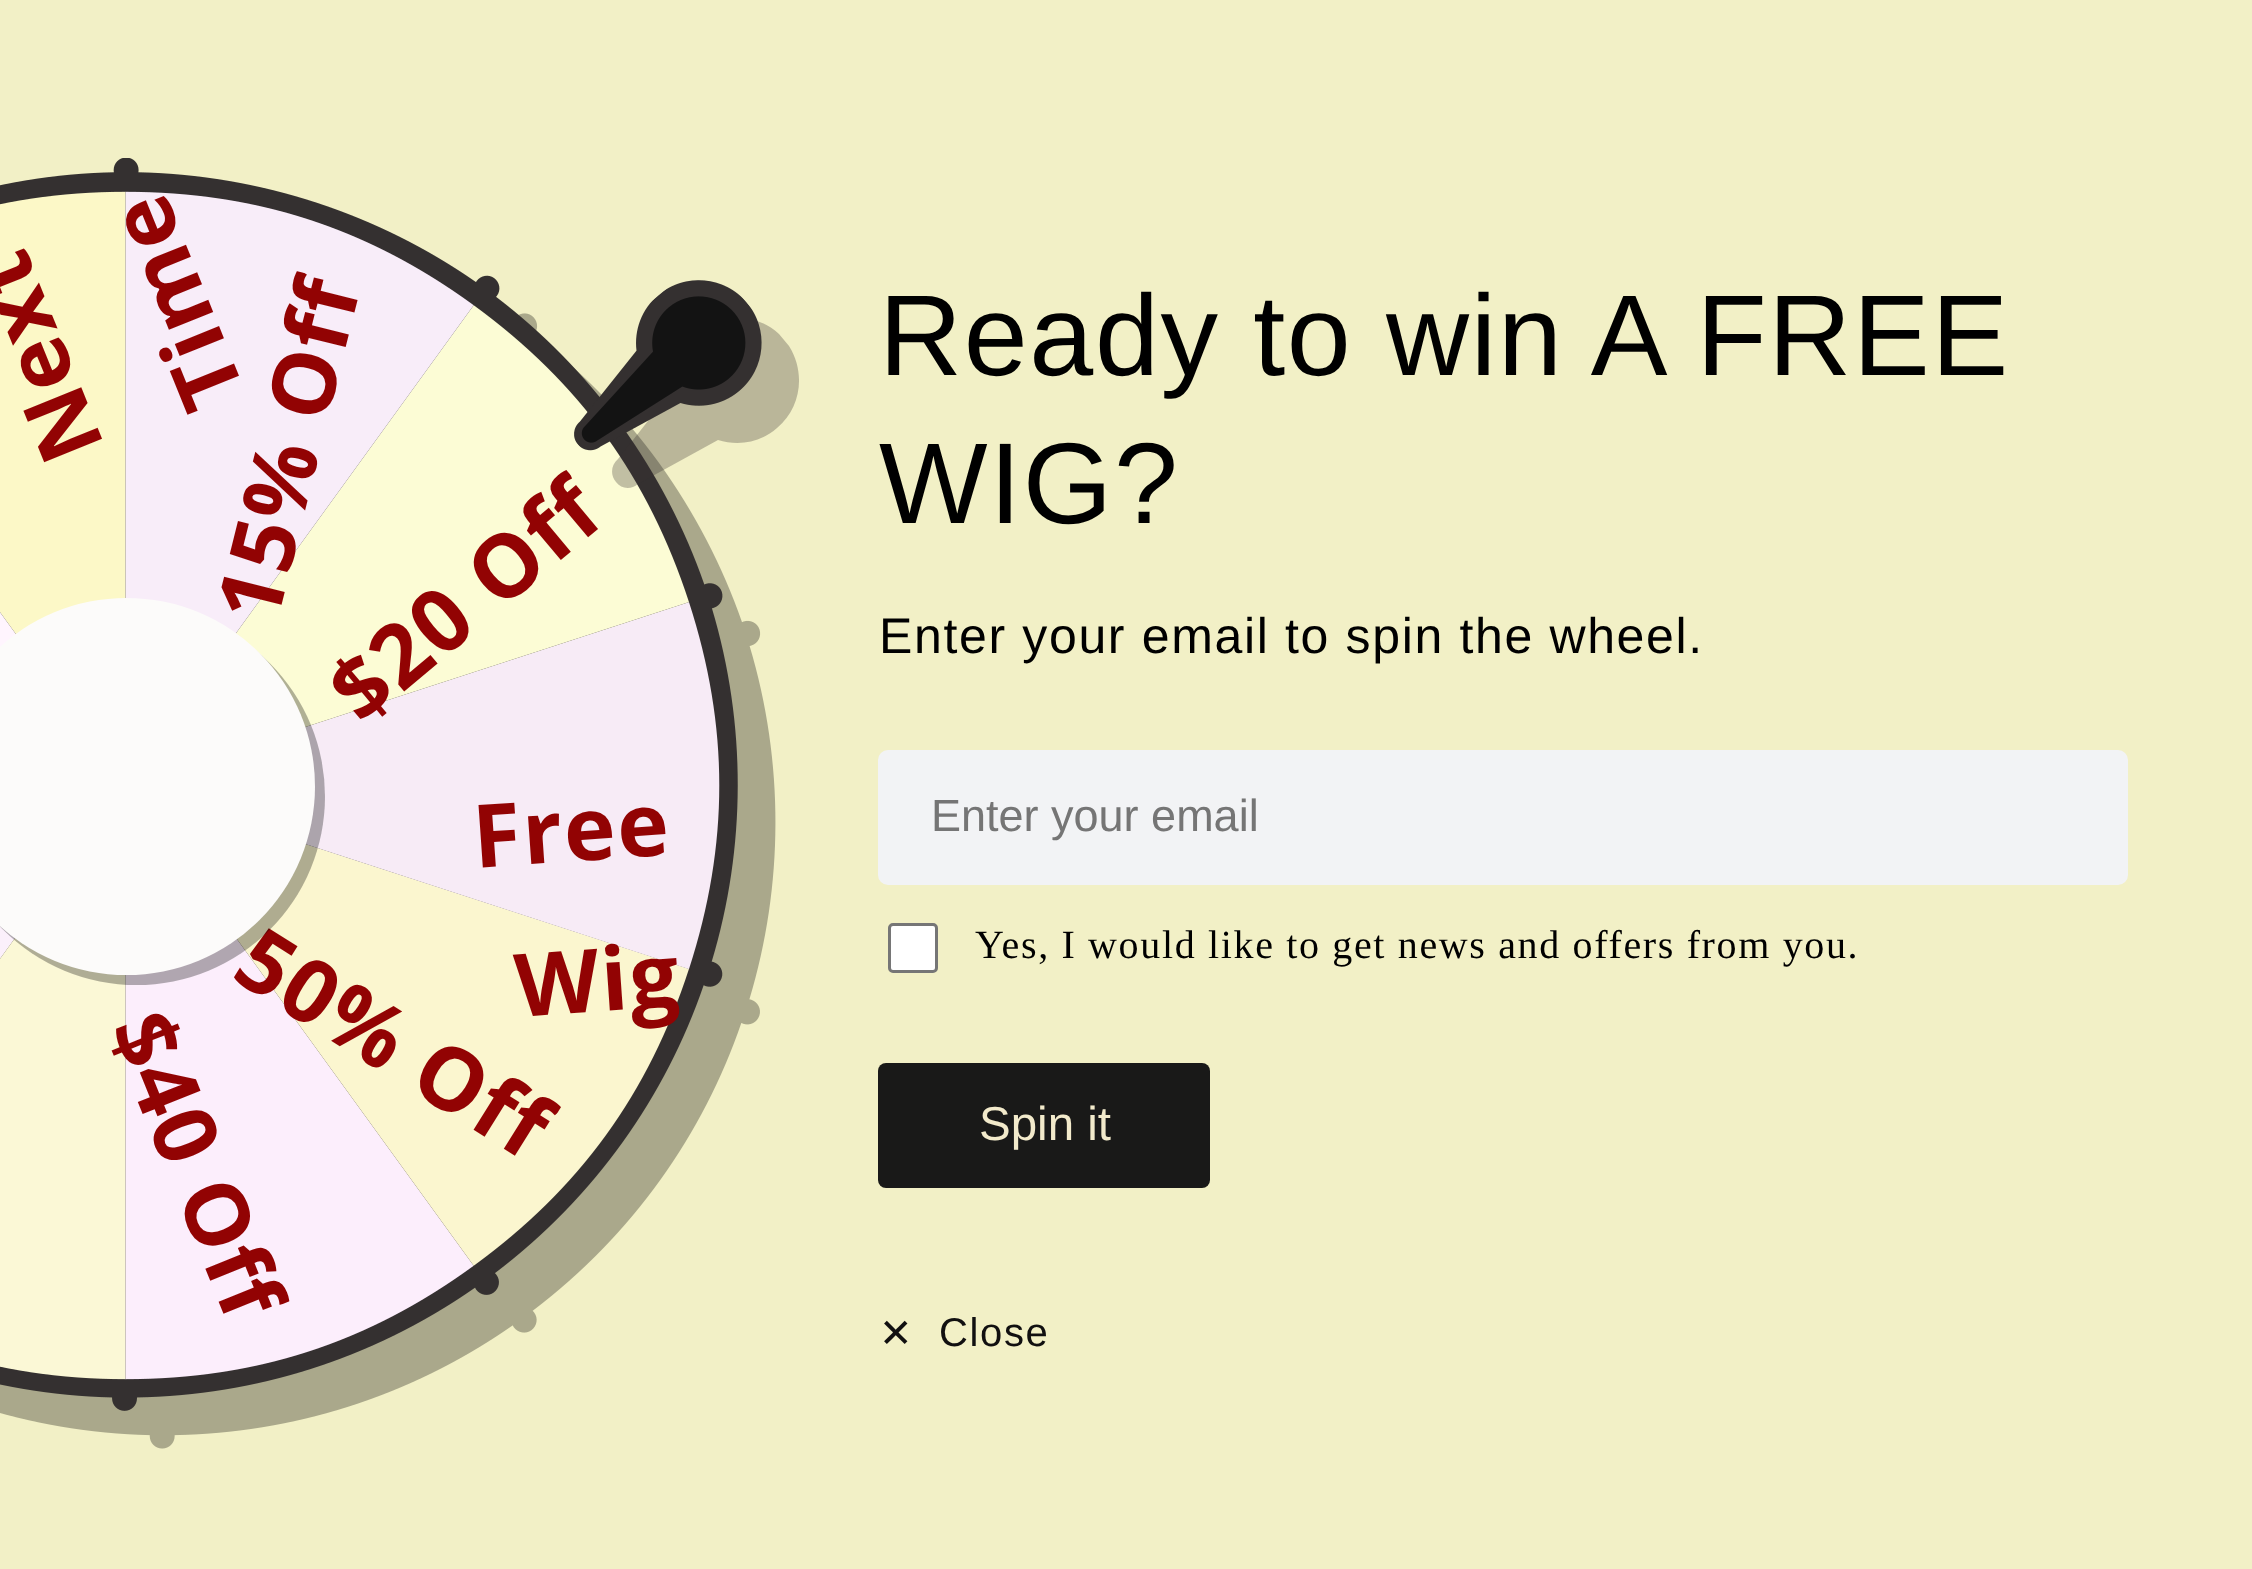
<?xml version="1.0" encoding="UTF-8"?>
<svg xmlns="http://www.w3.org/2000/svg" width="2252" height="1569">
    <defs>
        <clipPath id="clip1"><path d="M 125.5 785 L 256 261 L 403 297.5 L 272 821.5 Z"/></clipPath>
        <clipPath id="clip2"><path d="M 125.5 785 L 539.5 438 L 636.5 553.5 L 222.5 900.5 Z"/></clipPath>
        <clipPath id="clip3"><path d="M 125.5 785 L 328 1285.5 L 188 1342.5 L -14.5 841.5 Z"/></clipPath>
        <clipPath id="clip4"><path d="M 125.5 785 L 583.5 1071 L 503.5 1199.5 L 45.5 913 Z"/></clipPath>
    </defs>
    <rect width="100%" height="100%" fill="#F2F0C6"/>
    <image x="0" y="313" width="776" height="1136" href="img_03.png"/>
    <image x="0" y="158" width="738" height="1253" href="img_01.png"/>
    <text x="105" y="446" transform="rotate(-112 105 446)" font-family="Open Sans" font-size="87.5" font-weight="700" letter-spacing="1.65" fill="#920303">Next</text>
    <g clip-path="url(#clip1)">
        <text x="276" y="627" transform="rotate(-76 276 627)" font-family="Open Sans" font-size="87.5" font-weight="700" letter-spacing="1.65" fill="#920303">15% Off</text>
    </g>
    <text x="246" y="393" transform="rotate(-112 246 393)" font-family="Open Sans" font-size="87.5" font-weight="700" letter-spacing="1.65" fill="#920303">Time</text>
    <g clip-path="url(#clip2)">
        <text x="362" y="727" transform="rotate(-40 362 727)" font-family="Open Sans" font-size="87.5" font-weight="700" letter-spacing="1.65" fill="#920303">$20 Off</text>
    </g>
    <g clip-path="url(#clip3)">
        <text x="108" y="1028" transform="rotate(68 108 1028)" font-family="Open Sans" font-size="87.5" font-weight="700" letter-spacing="1.65" fill="#920303">$40 Off</text>
    </g>
    <g clip-path="url(#clip4)">
        <text x="229" y="977" transform="rotate(32 229 977)" font-family="Open Sans" font-size="87.5" font-weight="700" letter-spacing="1.65" fill="#920303">50% Off</text>
    </g>
    <text x="475" y="868" transform="rotate(-4 475 868)" font-family="Open Sans" font-size="87.5" font-weight="700" letter-spacing="1.65" fill="#920303">Free</text>
    <text x="517" y="1017" transform="rotate(-4 517 1017)" font-family="Open Sans" font-size="87.5" font-weight="700" letter-spacing="1.65" fill="#920303">Wig</text>
    <path d="M 777 428 C 760 443 738 446 718 440 L 638 484 C 631 490 621 489 616 482 C 610 475 611 465 618 459 L 674 388 C 672 371 677 353 688 340 L 704 326 C 728 312 758 315 779 334 L 789 346 C 806 373 801 408 777 428 Z" fill="#383132" fill-opacity="0.3"/>
    <image x="574" y="280" width="188" height="171" href="img_02.png"/>
    <circle cx="136.5" cy="796.5" r="188.5" fill="#000000" fill-opacity="0.3"/>
    <circle cx="126.5" cy="786.5" r="188.5" fill="#FCFBFA"/>
    <text font-family="Liberation Sans" font-size="115" letter-spacing="1.65" fill="#000000">
        <tspan x="879" y="375">Ready to win A FREE</tspan>
        <tspan x="879" y="523">WIG?</tspan>
    </text>
    <text x="879" y="653" font-family="Liberation Sans" font-size="50" letter-spacing="1.65" fill="#000000">Enter your email to spin the wheel.</text>
    <rect x="879.5" y="751.5" width="1247" height="132" rx="8.5" fill="#F2F3F5" stroke="#F2F3F5" stroke-width="3"/>
    <text x="931" y="831" font-family="Liberation Sans" font-size="45" fill="#757575">Enter your email</text>
    <rect x="889.5" y="924.5" width="47" height="47" rx="3.5" fill="#FFFFFF" stroke="#767676" stroke-width="3"/>
    <text x="975" y="958" font-family="Liberation Serif" font-size="40" letter-spacing="1.65" fill="#000000">Yes, I would like to get news and offers from you.</text>
    <rect x="878" y="1063" width="332" height="125" rx="8" fill="#191918"/>
    <text x="979" y="1140" font-family="Liberation Sans" font-size="47.5" fill="#F2EACB">Spin it</text>
    <text x="879" y="1347" font-family="DejaVu Sans" font-size="40" letter-spacing="1.65" fill="#111010">✕</text>
    <text x="939" y="1346" font-family="Liberation Sans" font-size="40" letter-spacing="1.65" fill="#111010">Close</text>
</svg>
